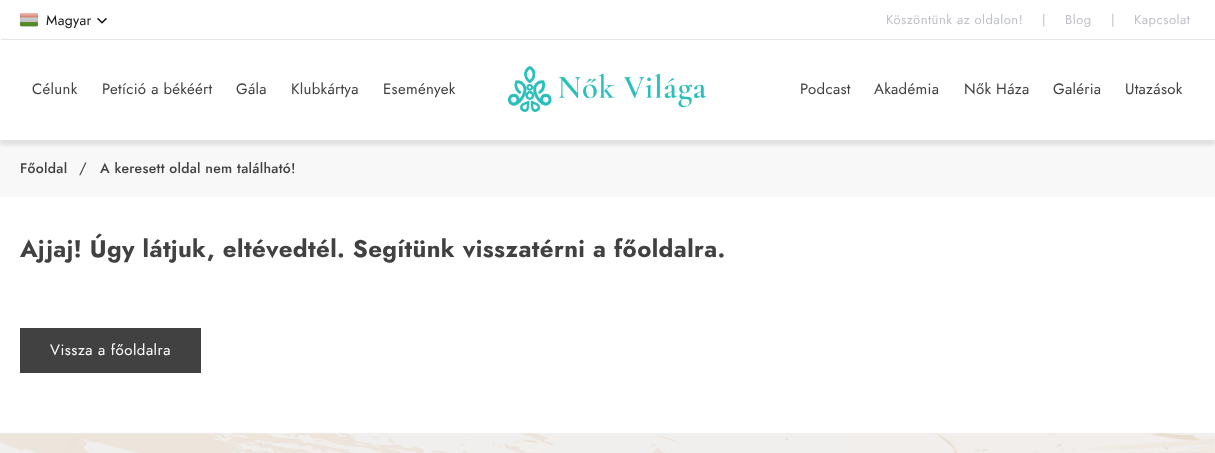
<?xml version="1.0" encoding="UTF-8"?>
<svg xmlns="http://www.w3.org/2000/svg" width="1215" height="453">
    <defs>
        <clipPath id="clip1"><rect x="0" y="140" width="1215" height="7"/></clipPath>
        <filter id="blur1" x="-50%" y="-200%" width="200%" height="500%"><feGaussianBlur stdDeviation="2.5"/></filter>
        <linearGradient id="g1" gradientUnits="userSpaceOnUse" x1="29" y1="13" x2="29" y2="27"><stop offset="0" stop-color="#FFFFFF" stop-opacity="0.7"/><stop offset="1" stop-color="#000000" stop-opacity="0.15"/></linearGradient>
    </defs>
    <rect width="100%" height="100%" fill="#FFFFFF"/>
    <rect x="0" y="140" width="1215" height="57" fill="#F8F8F8"/>
    <g clip-path="url(#clip1)">
        <rect x="0" y="5" width="1215" height="140" fill="#000000" fill-opacity="0.1" filter="url(#blur1)"/>
    </g>
    <image x="20" y="13" width="18" height="14" href="img_01.png"/>
    <rect x="20" y="13" width="18" height="14" rx="2" fill="url(#g1)"/>
    <rect x="20.5" y="13.5" width="17" height="13" rx="1.5" fill="none" stroke="#767676" stroke-opacity="0.1"/>
    <text x="46" y="25" font-family="Jost" font-size="14" letter-spacing="0.3" fill="#111111">Magyar</text>
    <image x="97" y="18" width="10" height="6" href="img_02.png"/>
    <text x="886" y="24" font-family="Jost" font-size="13" letter-spacing="0.5" fill="#BFC1C8">Köszöntünk az oldalon!</text>
    <text x="1042" y="24" font-family="Jost" font-size="13" letter-spacing="0.5" fill="#BFC1C8">|</text>
    <text x="1065" y="24" font-family="Jost" font-size="13" letter-spacing="0.5" fill="#BFC1C8">Blog</text>
    <text x="1111" y="24" font-family="Jost" font-size="13" letter-spacing="0.5" fill="#BFC1C8">|</text>
    <text x="1134" y="24" font-family="Jost" font-size="13" letter-spacing="0.5" fill="#BFC1C8">Kapcsolat</text>
    <rect x="1" y="39" width="1214" height="1" fill="#E7E7E7"/>
    <text x="32" y="94" font-family="Jost" font-size="15" letter-spacing="0.3" fill="#414141">Célunk</text>
    <text x="102" y="94" font-family="Jost" font-size="15" letter-spacing="0.3" fill="#414141">Petíció a békéért</text>
    <text x="236" y="94" font-family="Jost" font-size="15" letter-spacing="0.3" fill="#414141">Gála</text>
    <text x="291" y="94" font-family="Jost" font-size="15" letter-spacing="0.3" fill="#414141">Klubkártya</text>
    <text x="383" y="94" font-family="Jost" font-size="15" letter-spacing="0.3" fill="#414141">Események</text>
    <image x="508" y="66" width="199" height="46" href="img_03.png"/>
    <text x="800" y="94" font-family="Jost" font-size="15" letter-spacing="0.3" fill="#414141">Podcast</text>
    <text x="874" y="94" font-family="Jost" font-size="15" letter-spacing="0.3" fill="#414141">Akadémia</text>
    <text x="964" y="94" font-family="Jost" font-size="15" letter-spacing="0.3" fill="#414141">Nők Háza</text>
    <text x="1053" y="94" font-family="Jost" font-size="15" letter-spacing="0.3" fill="#414141">Galéria</text>
    <text x="1125" y="94" font-family="Jost" font-size="15" letter-spacing="0.3" fill="#414141">Utazások</text>
    <text x="20" y="173" font-family="Jost" font-size="14" font-weight="500" letter-spacing="0.3" fill="#414141">Főoldal</text>
    <text x="79" y="173" font-family="Jost" font-size="15" letter-spacing="0.3" fill="#414141">/</text>
    <text x="100" y="173" font-family="Jost" font-size="14" font-weight="500" letter-spacing="0.3" fill="#414141">A keresett oldal nem található!</text>
    <text x="20" y="257" font-family="Jost" font-size="24" font-weight="700" letter-spacing="0.4" fill="#414141">Ajjaj! Úgy látjuk, eltévedtél. Segítünk visszatérni a főoldalra.</text>
    <rect x="20" y="328" width="181" height="45" fill="#414141"/>
    <text x="50" y="355" font-family="Jost" font-size="15" letter-spacing="0.5" fill="#FFFFFF">Vissza a főoldalra</text>
    <image x="0" y="432" width="1215" height="21" href="img_04.png"/>
</svg>
